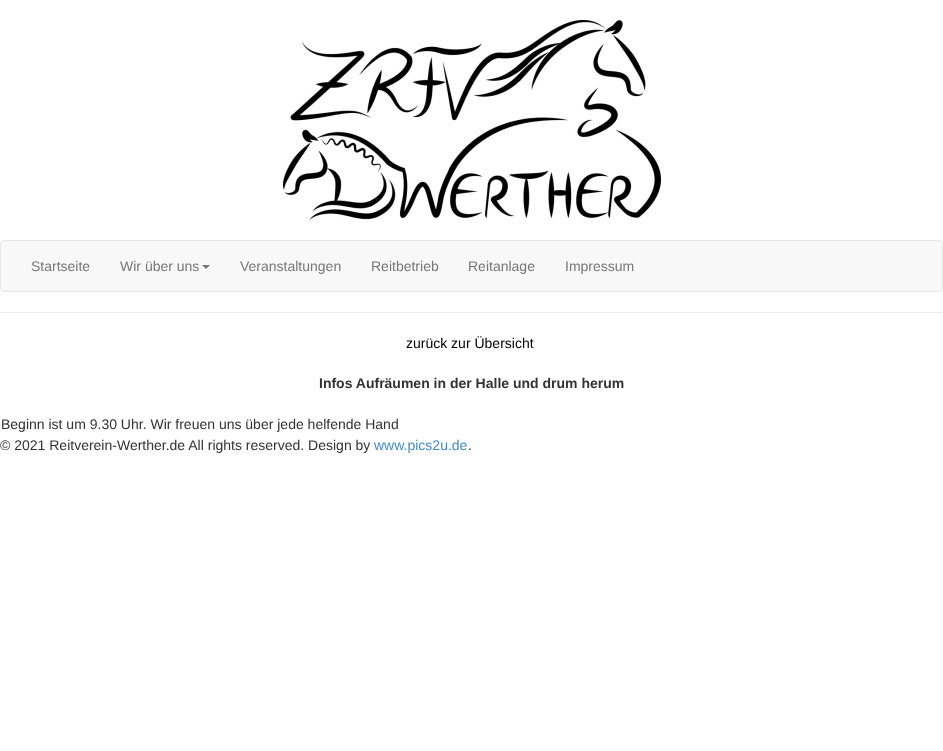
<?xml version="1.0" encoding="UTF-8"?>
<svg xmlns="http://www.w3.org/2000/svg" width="943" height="751">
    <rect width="100%" height="100%" fill="#FFFFFF"/>
    <image x="283" y="20" width="378" height="200" href="img_01.png"/>
    <rect x="0.5" y="240.5" width="942" height="51" rx="3.5" fill="#F8F8F8" stroke="#E7E7E7"/>
    <text x="31" y="271" font-family="Liberation Sans" font-size="14" fill="#777777">Startseite</text>
    <text x="120" y="271" font-family="Liberation Sans" font-size="14" fill="#777777">Wir über uns</text>
    <path d="M 202 265 H 210 L 206 269 Z" fill="#777777"/>
    <text x="240" y="271" font-family="Liberation Sans" font-size="14" fill="#777777">Veranstaltungen</text>
    <text x="371" y="271" font-family="Liberation Sans" font-size="14" fill="#777777">Reitbetrieb</text>
    <text x="468" y="271" font-family="Liberation Sans" font-size="14" fill="#777777">Reitanlage</text>
    <text x="565" y="271" font-family="Liberation Sans" font-size="14" fill="#777777">Impressum</text>
    <rect x="0" y="312" width="943" height="1" fill="#EEEEEE"/>
    <text x="406" y="348" font-family="Liberation Sans" font-size="14" fill="#000000">zurück zur Übersicht</text>
    <text x="319" y="388" font-family="Liberation Sans" font-size="14" font-weight="700" fill="#333333">Infos Aufräumen in der Halle und drum herum</text>
    <text x="1" y="429" font-family="Liberation Sans" font-size="14" fill="#333333">Beginn ist um 9.30 Uhr. Wir freuen uns über jede helfende Hand</text>
    <text x="0" y="450" font-family="Liberation Sans" font-size="14" fill="#333333">© 2021 Reitverein-Werther.de All rights reserved. Design by</text>
    <text x="374" y="450" font-family="Liberation Sans" font-size="14" fill="#428BCA">www.pics2u.de</text>
    <text x="468" y="450" font-family="Liberation Sans" font-size="14" fill="#333333">.</text>
</svg>
